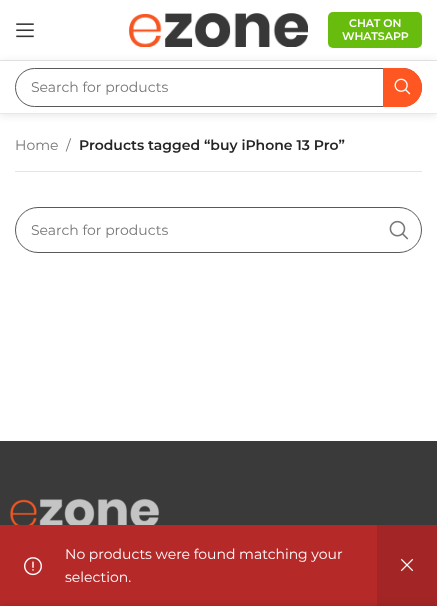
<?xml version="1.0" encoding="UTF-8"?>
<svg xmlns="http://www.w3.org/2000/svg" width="437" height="606">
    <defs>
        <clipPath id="clip1"><path d="M 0 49 H 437 V 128 H 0 Z M 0 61 H 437 V 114 H 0 Z" clip-rule="evenodd"/></clipPath>
        <filter id="blur1" x="-50%" y="-200%" width="200%" height="500%"><feGaussianBlur stdDeviation="4"/></filter>
        <filter id="blur2" x="-50%" y="-200%" width="200%" height="500%"><feGaussianBlur stdDeviation="4.5"/></filter>
    </defs>
    <rect width="100%" height="100%" fill="#FFFFFF"/>
    <rect x="0" y="60" width="437" height="1" fill="#E8E8E8"/>
    <image x="16" y="23" width="18" height="15" href="img_01.png"/>
    <image x="129" y="13" width="179" height="34" href="img_02.png"/>
    <rect x="328" y="12" width="94" height="36" rx="5" fill="#68BC0E"/>
    <text x="349" y="27" font-family="Montserrat" font-size="11" font-weight="600" fill="#FFFFFF">CHAT ON</text>
    <text x="342" y="40" font-family="Montserrat" font-size="11" font-weight="600" fill="#FFFFFF">WHATSAPP</text>
    <g clip-path="url(#clip1)">
        <rect x="0" y="62" width="437" height="53" fill="#000000" fill-opacity="0.1" filter="url(#blur1)"/>
    </g>
    <rect x="0" y="113" width="437" height="1" fill="#E8E8E8"/>
    <rect x="15.5" y="68.5" width="406" height="38" rx="19" fill="none" stroke="#595959"/>
    <text x="31" y="92" font-family="Montserrat" font-size="14" fill="#767676">Search for products</text>
    <path d="M 383 68 H 402.5 C 413.5 68 422 76.5 422 87.5 C 422 98.5 413.5 107 402.5 107 H 383 Z" fill="#FE5722"/>
    <image x="394" y="78" width="17" height="17" href="img_03.png"/>
    <rect x="15" y="171" width="407" height="1" fill="#E4E4E4"/>
    <text x="15" y="150" font-family="Montserrat" font-size="14" fill="#767676">Home</text>
    <text x="66" y="150" font-family="Montserrat" font-size="14" fill="#767676">/</text>
    <text x="79" y="150" font-family="Montserrat" font-size="14" font-weight="600" fill="#242424">Products tagged “buy iPhone 13 Pro”</text>
    <rect x="15.5" y="207.5" width="406" height="45" rx="22.5" fill="none" stroke="#595959"/>
    <text x="31" y="235" font-family="Montserrat" font-size="14" fill="#767676">Search for products</text>
    <image x="389" y="220" width="20" height="20" href="img_04.png"/>
    <rect x="0" y="525" width="377" height="81" fill="#B52929"/>
    <text x="65" y="559" font-family="Montserrat" font-size="14" fill="#FFFFFF">No products were found matching your</text>
    <rect x="377" y="525" width="60" height="81" fill="#A32525"/>
    <image x="400" y="558" width="14" height="14" href="img_05.png"/>
    <image x="24" y="557" width="18" height="19" href="img_06.png"/>
    <text x="65" y="582" font-family="Montserrat" font-size="14" fill="#FFFFFF">selection.</text>
    <rect x="0" y="441" width="437" height="84" fill="#3A3A3A"/>
    <image x="10" y="498" width="150" height="27" href="img_07.png"/>
    <rect x="0" y="606" width="437" height="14" fill="#000000" fill-opacity="0.14" filter="url(#blur2)"/>
</svg>
